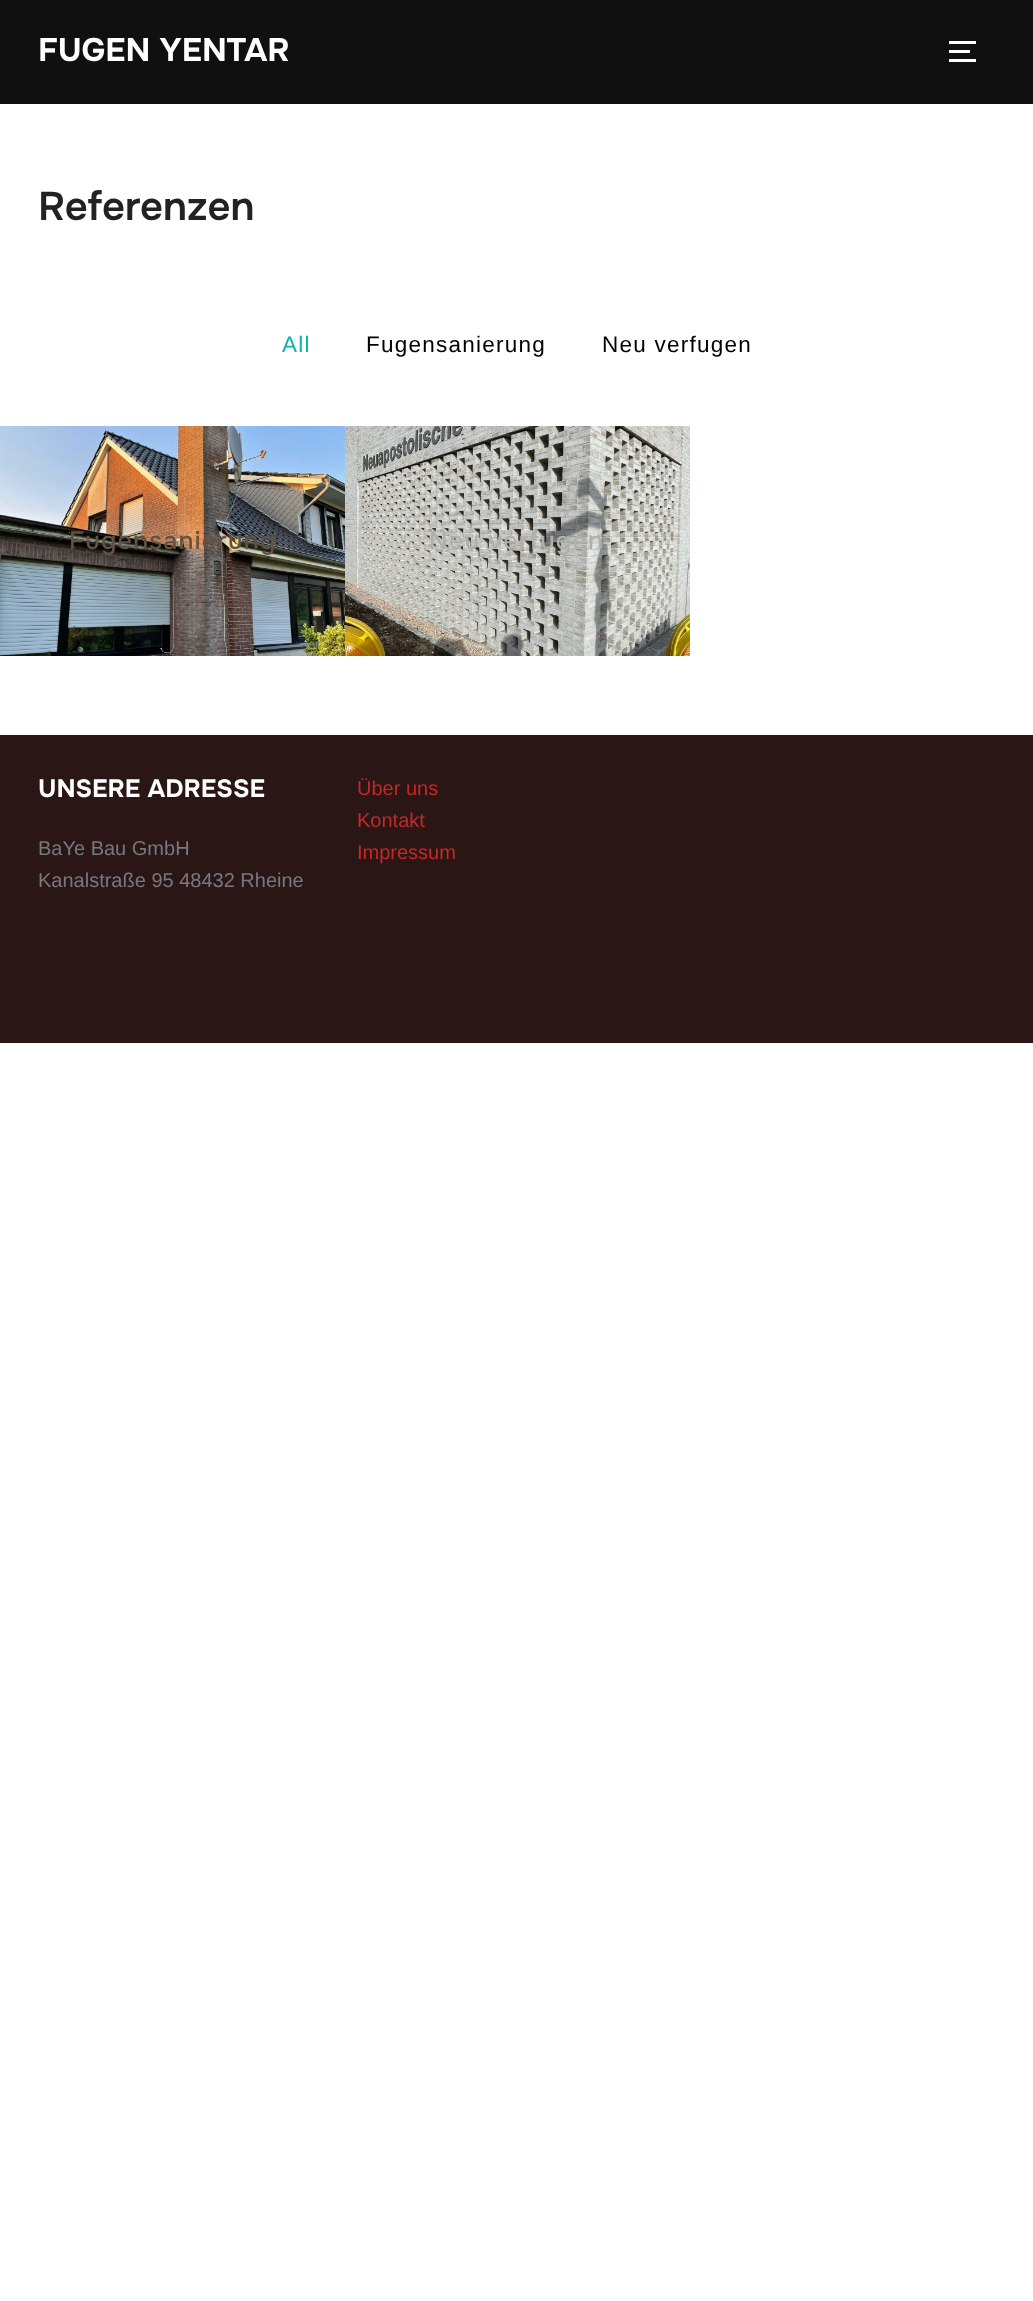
<?xml version="1.0" encoding="UTF-8"?>
<svg xmlns="http://www.w3.org/2000/svg" width="1033" height="2301">
    <rect width="100%" height="100%" fill="#FFFFFF"/>
    <rect x="0" y="0" width="1033" height="104" fill="#101010"/>
    <text x="38" y="61" font-family="Onest" font-size="32.5" font-weight="700" fill="#FFFFFF">FUGEN YENTAR</text>
    <rect x="949" y="41" width="27" height="3" fill="#FFFFFF"/>
    <rect x="949" y="50" width="21" height="3" fill="#FFFFFF"/>
    <rect x="949" y="59" width="27" height="3" fill="#FFFFFF"/>
    <text x="38" y="220" font-family="Onest" font-size="40" font-weight="600" fill="#222222">Referenzen</text>
    <text x="282" y="352" font-family="Liberation Sans" font-size="22.5" letter-spacing="1.25" fill="#0BB4AA">All</text>
    <text x="366" y="352" font-family="Liberation Sans" font-size="22.5" letter-spacing="1.25" fill="#000000">Fugensanierung</text>
    <text x="602" y="352" font-family="Liberation Sans" font-size="22.5" letter-spacing="1.25" fill="#000000">Neu verfugen</text>
    <image x="0" y="426" width="345" height="230" href="img_01.png"/>
    <text x="69" y="549" font-family="Onest" font-size="25" font-weight="500" letter-spacing="1.25" fill="#615243">Fugensanierung</text>
    <image x="345" y="426" width="345" height="230" href="img_02.png"/>
    <text x="429" y="549" font-family="Onest" font-size="25" font-weight="500" letter-spacing="1.25" fill="#AFB0AB">Neu verfugen</text>
    <rect x="0" y="735" width="1033" height="308" fill="#2B1616"/>
    <text x="38" y="797" font-family="Onest" font-size="25" font-weight="700" fill="#FFFFFF">UNSERE ADRESSE</text>
    <text font-family="Liberation Sans" font-size="20" fill="#78787F">
        <tspan x="38" y="855">BaYe Bau GmbH</tspan>
        <tspan x="38" y="887">Kanalstraße 95 48432 Rheine</tspan>
    </text>
    <text font-family="Liberation Sans" font-size="20" fill="#C62828">
        <tspan x="357" y="795">Über uns</tspan>
        <tspan x="357" y="827">Kontakt</tspan>
        <tspan x="357" y="859">Impressum</tspan>
    </text>
</svg>
